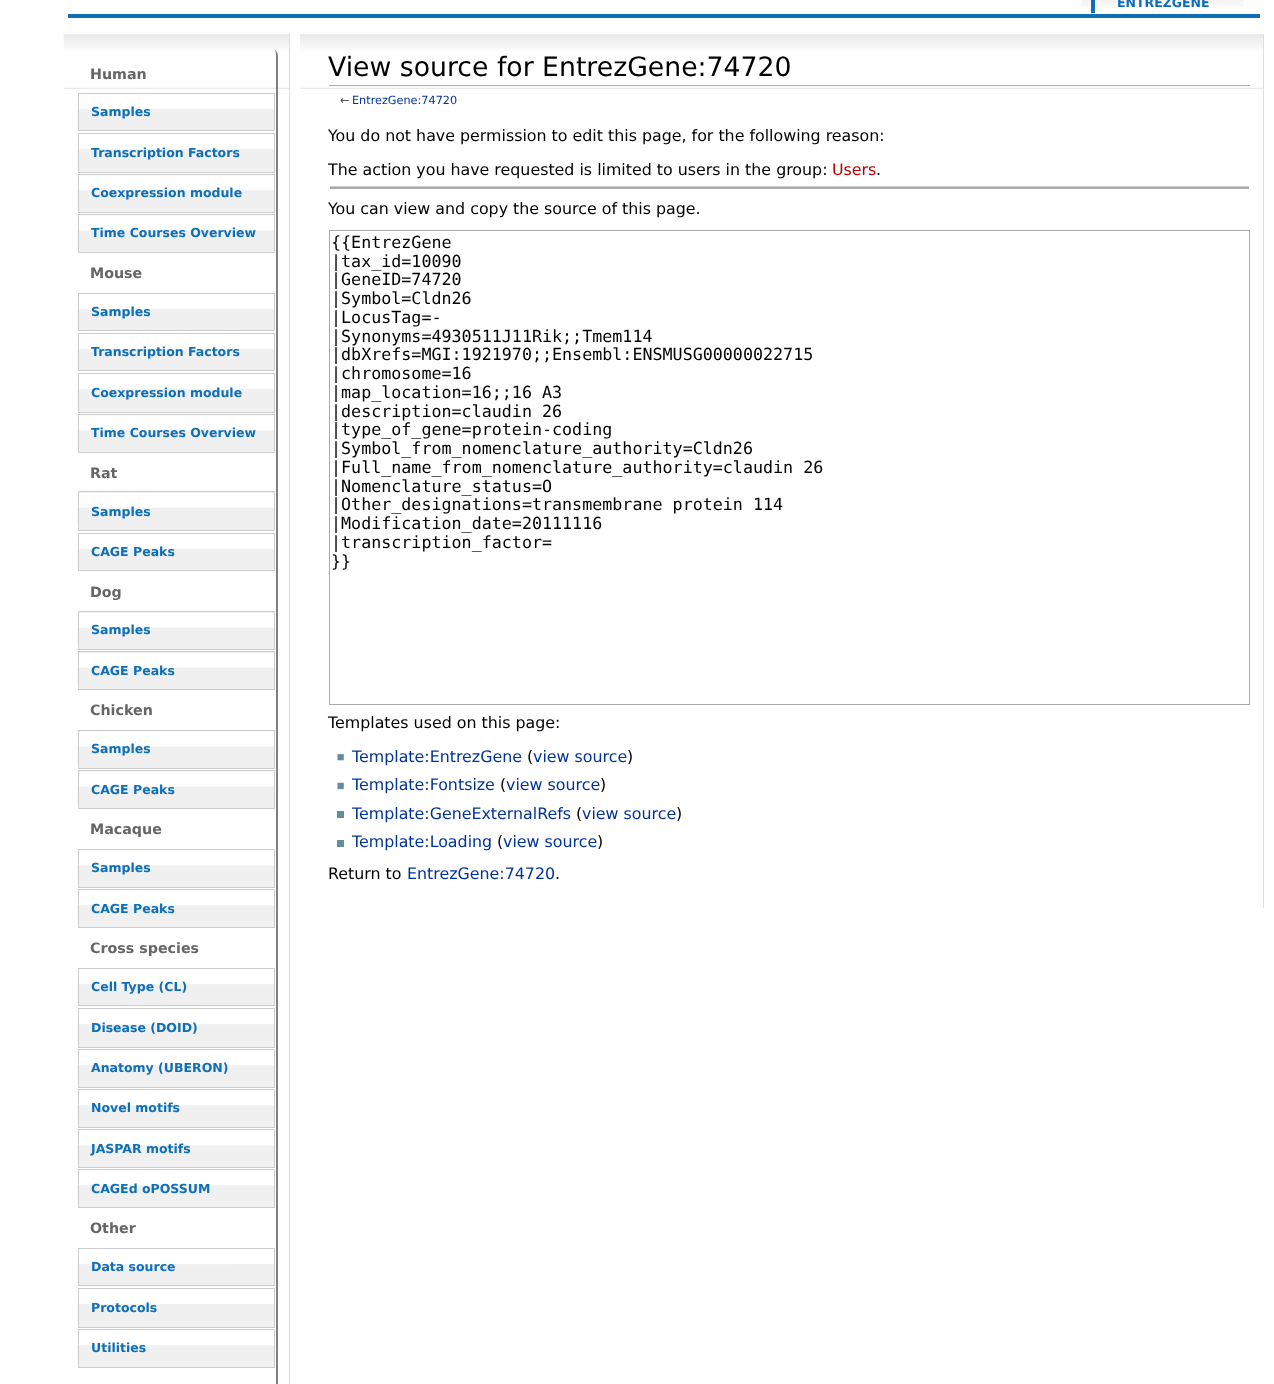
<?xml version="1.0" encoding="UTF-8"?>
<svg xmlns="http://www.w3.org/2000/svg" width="1274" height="1384">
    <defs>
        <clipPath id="clip1"><path d="M 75 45 H 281 V 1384 H 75 Z M 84 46 H 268 C 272.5 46 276 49.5 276 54 V 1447 C 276 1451.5 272.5 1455 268 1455 H 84 C 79.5 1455 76 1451.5 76 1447 V 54 C 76 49.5 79.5 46 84 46 Z" clip-rule="evenodd"/></clipPath>
        <filter id="blur1" x="-50%" y="-200%" width="200%" height="500%"><feGaussianBlur stdDeviation="0.5"/></filter>
    </defs>
    <rect width="100%" height="100%" fill="#FFFFFF"/>
    <rect x="68" y="14" width="1192" height="4" fill="#0D6FB8"/>
    <image x="1081" y="0" width="163" height="7" href="img_01.png"/>
    <rect x="1091" y="0" width="4" height="13" fill="#0D6FB8"/>
    <text x="1117" y="7" font-family="DejaVu Sans" font-size="12.5" font-weight="700" fill="#0D6FB8">ENTREZGENE</text>
    <image x="63" y="34" width="226" height="55" href="img_02.png"/>
    <rect x="289" y="34" width="1" height="1350" fill="#DDDDDD"/>
    <g clip-path="url(#clip1)">
        <rect x="78" y="48" width="200" height="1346" rx="8" fill="#808080" filter="url(#blur1)"/>
    </g>
    <text x="90" y="79" font-family="DejaVu Sans" font-size="14.25" font-weight="700" fill="#666666">Human</text>
    <rect x="79" y="126" width="195" height="4" fill="#F0F0F0"/>
    <image x="77" y="94" width="197" height="33" href="img_03.png"/>
    <rect x="78.5" y="93.5" width="196" height="37" fill="none" stroke="#CCCCCC"/>
    <text x="91" y="116" font-family="DejaVu Sans" font-size="12.5" font-weight="700" fill="#0D6FB8">Samples</text>
    <rect x="79" y="166" width="195" height="6" fill="#F0F0F0"/>
    <image x="77" y="134" width="197" height="33" href="img_04.png"/>
    <rect x="78.5" y="133.5" width="196" height="39" fill="none" stroke="#CCCCCC"/>
    <text x="91" y="157" font-family="DejaVu Sans" font-size="12.5" font-weight="700" fill="#0D6FB8">Transcription Factors</text>
    <rect x="79" y="175" width="195" height="37" fill="#F0F0F0"/>
    <image x="77" y="175" width="197" height="33" href="img_05.png"/>
    <rect x="78.5" y="174.5" width="196" height="38" fill="none" stroke="#CCCCCC"/>
    <text x="91" y="197" font-family="DejaVu Sans" font-size="12.5" font-weight="700" fill="#0D6FB8">Coexpression module</text>
    <rect x="79" y="215" width="195" height="37" fill="#F0F0F0"/>
    <image x="77" y="215" width="197" height="33" href="img_06.png"/>
    <rect x="78.5" y="214.5" width="196" height="38" fill="none" stroke="#CCCCCC"/>
    <text x="91" y="237" font-family="DejaVu Sans" font-size="12.5" font-weight="700" fill="#0D6FB8">Time Courses Overview</text>
    <text x="90" y="278" font-family="DejaVu Sans" font-size="14.25" font-weight="700" fill="#666666">Mouse</text>
    <rect x="79" y="326" width="195" height="4" fill="#F0F0F0"/>
    <image x="77" y="294" width="197" height="33" href="img_04.png"/>
    <rect x="78.5" y="293.5" width="196" height="37" fill="none" stroke="#CCCCCC"/>
    <text x="91" y="316" font-family="DejaVu Sans" font-size="12.5" font-weight="700" fill="#0D6FB8">Samples</text>
    <rect x="79" y="366" width="195" height="4" fill="#F0F0F0"/>
    <image x="77" y="334" width="197" height="33" href="img_04.png"/>
    <rect x="78.5" y="333.5" width="196" height="37" fill="none" stroke="#CCCCCC"/>
    <text x="91" y="356" font-family="DejaVu Sans" font-size="12.5" font-weight="700" fill="#0D6FB8">Transcription Factors</text>
    <rect x="79" y="406" width="195" height="6" fill="#F0F0F0"/>
    <image x="77" y="374" width="197" height="33" href="img_04.png"/>
    <rect x="78.5" y="373.5" width="196" height="39" fill="none" stroke="#CCCCCC"/>
    <text x="91" y="397" font-family="DejaVu Sans" font-size="12.5" font-weight="700" fill="#0D6FB8">Coexpression module</text>
    <rect x="79" y="415" width="195" height="37" fill="#F0F0F0"/>
    <image x="77" y="415" width="197" height="33" href="img_06.png"/>
    <rect x="78.5" y="414.5" width="196" height="38" fill="none" stroke="#CCCCCC"/>
    <text x="91" y="437" font-family="DejaVu Sans" font-size="12.5" font-weight="700" fill="#0D6FB8">Time Courses Overview</text>
    <text x="90" y="478" font-family="DejaVu Sans" font-size="14.25" font-weight="700" fill="#666666">Rat</text>
    <rect x="79" y="492" width="195" height="38" fill="#F0F0F0"/>
    <image x="77" y="493" width="197" height="32" href="img_07.png"/>
    <rect x="78.5" y="491.5" width="196" height="39" fill="none" stroke="#CCCCCC"/>
    <text x="91" y="516" font-family="DejaVu Sans" font-size="12.5" font-weight="700" fill="#0D6FB8">Samples</text>
    <rect x="79" y="566" width="195" height="4" fill="#F0F0F0"/>
    <image x="77" y="534" width="197" height="33" href="img_04.png"/>
    <rect x="78.5" y="533.5" width="196" height="37" fill="none" stroke="#CCCCCC"/>
    <text x="91" y="556" font-family="DejaVu Sans" font-size="12.5" font-weight="700" fill="#0D6FB8">CAGE Peaks</text>
    <text x="90" y="597" font-family="DejaVu Sans" font-size="14.25" font-weight="700" fill="#666666">Dog</text>
    <rect x="79" y="612" width="195" height="37" fill="#F0F0F0"/>
    <image x="77" y="613" width="197" height="32" href="img_08.png"/>
    <rect x="78.5" y="611.5" width="196" height="38" fill="none" stroke="#CCCCCC"/>
    <text x="91" y="634" font-family="DejaVu Sans" font-size="12.5" font-weight="700" fill="#0D6FB8">Samples</text>
    <rect x="79" y="652" width="195" height="37" fill="#F0F0F0"/>
    <image x="77" y="653" width="197" height="32" href="img_07.png"/>
    <rect x="78.5" y="651.5" width="196" height="38" fill="none" stroke="#CCCCCC"/>
    <text x="91" y="675" font-family="DejaVu Sans" font-size="12.5" font-weight="700" fill="#0D6FB8">CAGE Peaks</text>
    <text x="90" y="715" font-family="DejaVu Sans" font-size="14.25" font-weight="700" fill="#666666">Chicken</text>
    <rect x="79" y="731" width="195" height="37" fill="#F0F0F0"/>
    <image x="77" y="731" width="197" height="33" href="img_09.png"/>
    <rect x="78.5" y="730.5" width="196" height="38" fill="none" stroke="#CCCCCC"/>
    <text x="91" y="753" font-family="DejaVu Sans" font-size="12.5" font-weight="700" fill="#0D6FB8">Samples</text>
    <rect x="79" y="771" width="195" height="37" fill="#F0F0F0"/>
    <image x="77" y="771" width="197" height="33" href="img_09.png"/>
    <rect x="78.5" y="770.5" width="196" height="38" fill="none" stroke="#CCCCCC"/>
    <text x="91" y="794" font-family="DejaVu Sans" font-size="12.5" font-weight="700" fill="#0D6FB8">CAGE Peaks</text>
    <text x="90" y="834" font-family="DejaVu Sans" font-size="14.25" font-weight="700" fill="#666666">Macaque</text>
    <rect x="79" y="850" width="195" height="37" fill="#F0F0F0"/>
    <image x="77" y="850" width="197" height="33" href="img_06.png"/>
    <rect x="78.5" y="849.5" width="196" height="38" fill="none" stroke="#CCCCCC"/>
    <text x="91" y="872" font-family="DejaVu Sans" font-size="12.5" font-weight="700" fill="#0D6FB8">Samples</text>
    <rect x="79" y="890" width="195" height="37" fill="#F0F0F0"/>
    <image x="77" y="890" width="197" height="33" href="img_10.png"/>
    <rect x="78.5" y="889.5" width="196" height="38" fill="none" stroke="#CCCCCC"/>
    <text x="91" y="913" font-family="DejaVu Sans" font-size="12.5" font-weight="700" fill="#0D6FB8">CAGE Peaks</text>
    <text x="90" y="953" font-family="DejaVu Sans" font-size="14.25" font-weight="700" fill="#666666">Cross species</text>
    <rect x="79" y="1001" width="195" height="4" fill="#F0F0F0"/>
    <image x="77" y="969" width="197" height="33" href="img_04.png"/>
    <rect x="78.5" y="968.5" width="196" height="37" fill="none" stroke="#CCCCCC"/>
    <text x="91" y="991" font-family="DejaVu Sans" font-size="12.5" font-weight="700" fill="#0D6FB8">Cell Type (CL)</text>
    <rect x="79" y="1041" width="195" height="6" fill="#F0F0F0"/>
    <image x="77" y="1009" width="197" height="33" href="img_04.png"/>
    <rect x="78.5" y="1008.5" width="196" height="39" fill="none" stroke="#CCCCCC"/>
    <text x="91" y="1032" font-family="DejaVu Sans" font-size="12.5" font-weight="700" fill="#0D6FB8">Disease (DOID)</text>
    <rect x="79" y="1050" width="195" height="37" fill="#F0F0F0"/>
    <image x="77" y="1050" width="197" height="33" href="img_05.png"/>
    <rect x="78.5" y="1049.5" width="196" height="38" fill="none" stroke="#CCCCCC"/>
    <text x="91" y="1072" font-family="DejaVu Sans" font-size="12.5" font-weight="700" fill="#0D6FB8">Anatomy (UBERON)</text>
    <rect x="79" y="1090" width="195" height="37" fill="#F0F0F0"/>
    <image x="77" y="1090" width="197" height="33" href="img_05.png"/>
    <rect x="78.5" y="1089.5" width="196" height="38" fill="none" stroke="#CCCCCC"/>
    <text x="91" y="1112" font-family="DejaVu Sans" font-size="12.5" font-weight="700" fill="#0D6FB8">Novel motifs</text>
    <rect x="79" y="1130" width="195" height="37" fill="#F0F0F0"/>
    <image x="77" y="1130" width="197" height="33" href="img_06.png"/>
    <rect x="78.5" y="1129.5" width="196" height="38" fill="none" stroke="#CCCCCC"/>
    <text x="91" y="1153" font-family="DejaVu Sans" font-size="12.5" font-weight="700" fill="#0D6FB8">JASPAR motifs</text>
    <rect x="79" y="1170" width="195" height="37" fill="#F0F0F0"/>
    <image x="77" y="1170" width="197" height="33" href="img_10.png"/>
    <rect x="78.5" y="1169.5" width="196" height="38" fill="none" stroke="#CCCCCC"/>
    <text x="91" y="1193" font-family="DejaVu Sans" font-size="12.5" font-weight="700" fill="#0D6FB8">CAGEd oPOSSUM</text>
    <text x="90" y="1233" font-family="DejaVu Sans" font-size="14.25" font-weight="700" fill="#666666">Other</text>
    <rect x="79" y="1281" width="195" height="4" fill="#F0F0F0"/>
    <image x="77" y="1249" width="197" height="33" href="img_11.png"/>
    <rect x="78.5" y="1248.5" width="196" height="37" fill="none" stroke="#CCCCCC"/>
    <text x="91" y="1271" font-family="DejaVu Sans" font-size="12.5" font-weight="700" fill="#0D6FB8">Data source</text>
    <rect x="79" y="1321" width="195" height="6" fill="#F0F0F0"/>
    <image x="77" y="1289" width="197" height="33" href="img_03.png"/>
    <rect x="78.5" y="1288.5" width="196" height="39" fill="none" stroke="#CCCCCC"/>
    <text x="91" y="1312" font-family="DejaVu Sans" font-size="12.5" font-weight="700" fill="#0D6FB8">Protocols</text>
    <rect x="79" y="1330" width="195" height="37" fill="#F0F0F0"/>
    <image x="77" y="1330" width="197" height="33" href="img_05.png"/>
    <rect x="78.5" y="1329.5" width="196" height="38" fill="none" stroke="#CCCCCC"/>
    <text x="91" y="1352" font-family="DejaVu Sans" font-size="12.5" font-weight="700" fill="#0D6FB8">Utilities</text>
    <image x="300" y="34" width="963" height="55" href="img_12.png"/>
    <rect x="1263" y="34" width="1" height="874" fill="#DDDDDD"/>
    <rect x="329" y="85" width="921" height="1" fill="#AAAAAA"/>
    <text x="328" y="76" font-family="DejaVu Sans" font-size="26.7" fill="#000000">View source for EntrezGene:74720</text>
    <text x="340" y="104" font-family="DejaVu Sans" font-size="11.25" fill="#555555">←</text>
    <text x="352" y="104" font-family="DejaVu Sans" font-size="11.25" fill="#003399">EntrezGene:74720</text>
    <text x="328" y="141" font-family="DejaVu Sans" font-size="15.85" fill="#000000">You do not have permission to edit this page, for the following reason:</text>
    <text x="328" y="175" font-family="DejaVu Sans" font-size="15.85" fill="#000000">The action you have requested is limited to users in the group:</text>
    <text x="832" y="175" font-family="DejaVu Sans" font-size="15.85" fill="#BA0000">Users</text>
    <text x="876" y="175" font-family="DejaVu Sans" font-size="15.85" fill="#000000">.</text>
    <rect x="329" y="187" width="921" height="2" fill="#AAAAAA"/>
    <rect x="329" y="186" width="921" height="1" fill="#CCCCCC"/>
    <rect x="1249" y="186" width="1" height="4" fill="#FFFFFF"/>
    <rect x="329" y="186" width="1" height="4" fill="#FFFFFF"/>
    <text x="328" y="214" font-family="DejaVu Sans" font-size="15.85" fill="#000000">You can view and copy the source of this page.</text>
    <rect x="329.5" y="230.5" width="920" height="474" fill="none" stroke="#AAAAAA"/>
    <text font-family="DejaVu Sans Mono" font-size="16.7" fill="#000000">
        <tspan x="331" y="248">{{EntrezGene</tspan>
        <tspan x="331" y="267">|tax_id=10090</tspan>
        <tspan x="331" y="285">|GeneID=74720</tspan>
        <tspan x="331" y="304">|Symbol=Cldn26</tspan>
        <tspan x="331" y="323">|LocusTag=-</tspan>
        <tspan x="331" y="342">|Synonyms=4930511J11Rik;;Tmem114</tspan>
        <tspan x="331" y="360">|dbXrefs=MGI:1921970;;Ensembl:ENSMUSG00000022715</tspan>
        <tspan x="331" y="379">|chromosome=16</tspan>
        <tspan x="331" y="398">|map_location=16;;16 A3</tspan>
        <tspan x="331" y="417">|description=claudin 26</tspan>
        <tspan x="331" y="435">|type_of_gene=protein-coding</tspan>
        <tspan x="331" y="454">|Symbol_from_nomenclature_authority=Cldn26</tspan>
        <tspan x="331" y="473">|Full_name_from_nomenclature_authority=claudin 26</tspan>
        <tspan x="331" y="492">|Nomenclature_status=O</tspan>
        <tspan x="331" y="510">|Other_designations=transmembrane protein 114</tspan>
        <tspan x="331" y="529">|Modification_date=20111116</tspan>
        <tspan x="331" y="548">|transcription_factor=</tspan>
        <tspan x="331" y="567">}}</tspan>
    </text>
    <text x="328" y="728" font-family="DejaVu Sans" font-size="15.85" fill="#000000">Templates used on this page:</text>
    <image x="337" y="753" width="7" height="8" href="img_13.png"/>
    <text x="352" y="762" font-family="DejaVu Sans" font-size="15.85" fill="#003399">Template:EntrezGene</text>
    <text x="527" y="762" font-family="DejaVu Sans" font-size="15.85" fill="#000000">(</text>
    <text x="533" y="762" font-family="DejaVu Sans" font-size="15.85" fill="#003399">view source</text>
    <text x="627" y="762" font-family="DejaVu Sans" font-size="15.85" fill="#000000">)</text>
    <image x="337" y="782" width="7" height="8" href="img_14.png"/>
    <text x="352" y="790" font-family="DejaVu Sans" font-size="15.85" fill="#003399">Template:Fontsize</text>
    <text x="500" y="790" font-family="DejaVu Sans" font-size="15.85" fill="#000000">(</text>
    <text x="506" y="790" font-family="DejaVu Sans" font-size="15.85" fill="#003399">view source</text>
    <text x="600" y="790" font-family="DejaVu Sans" font-size="15.85" fill="#000000">)</text>
    <rect x="337" y="811" width="7" height="7" fill="#638C9C"/>
    <text x="352" y="819" font-family="DejaVu Sans" font-size="15.85" fill="#003399">Template:GeneExternalRefs</text>
    <text x="576" y="819" font-family="DejaVu Sans" font-size="15.85" fill="#000000">(</text>
    <text x="582" y="819" font-family="DejaVu Sans" font-size="15.85" fill="#003399">view source</text>
    <text x="676" y="819" font-family="DejaVu Sans" font-size="15.85" fill="#000000">)</text>
    <rect x="337" y="840" width="7" height="7" fill="#638C9C"/>
    <text x="352" y="847" font-family="DejaVu Sans" font-size="15.85" fill="#003399">Template:Loading</text>
    <text x="497" y="847" font-family="DejaVu Sans" font-size="15.85" fill="#000000">(</text>
    <text x="503" y="847" font-family="DejaVu Sans" font-size="15.85" fill="#003399">view source</text>
    <text x="597" y="847" font-family="DejaVu Sans" font-size="15.85" fill="#000000">)</text>
    <text x="328" y="879" font-family="DejaVu Sans" font-size="15.85" fill="#000000">Return to</text>
    <text x="407" y="879" font-family="DejaVu Sans" font-size="15.85" fill="#003399">EntrezGene:74720</text>
    <text x="555" y="879" font-family="DejaVu Sans" font-size="15.85" fill="#000000">.</text>
</svg>
